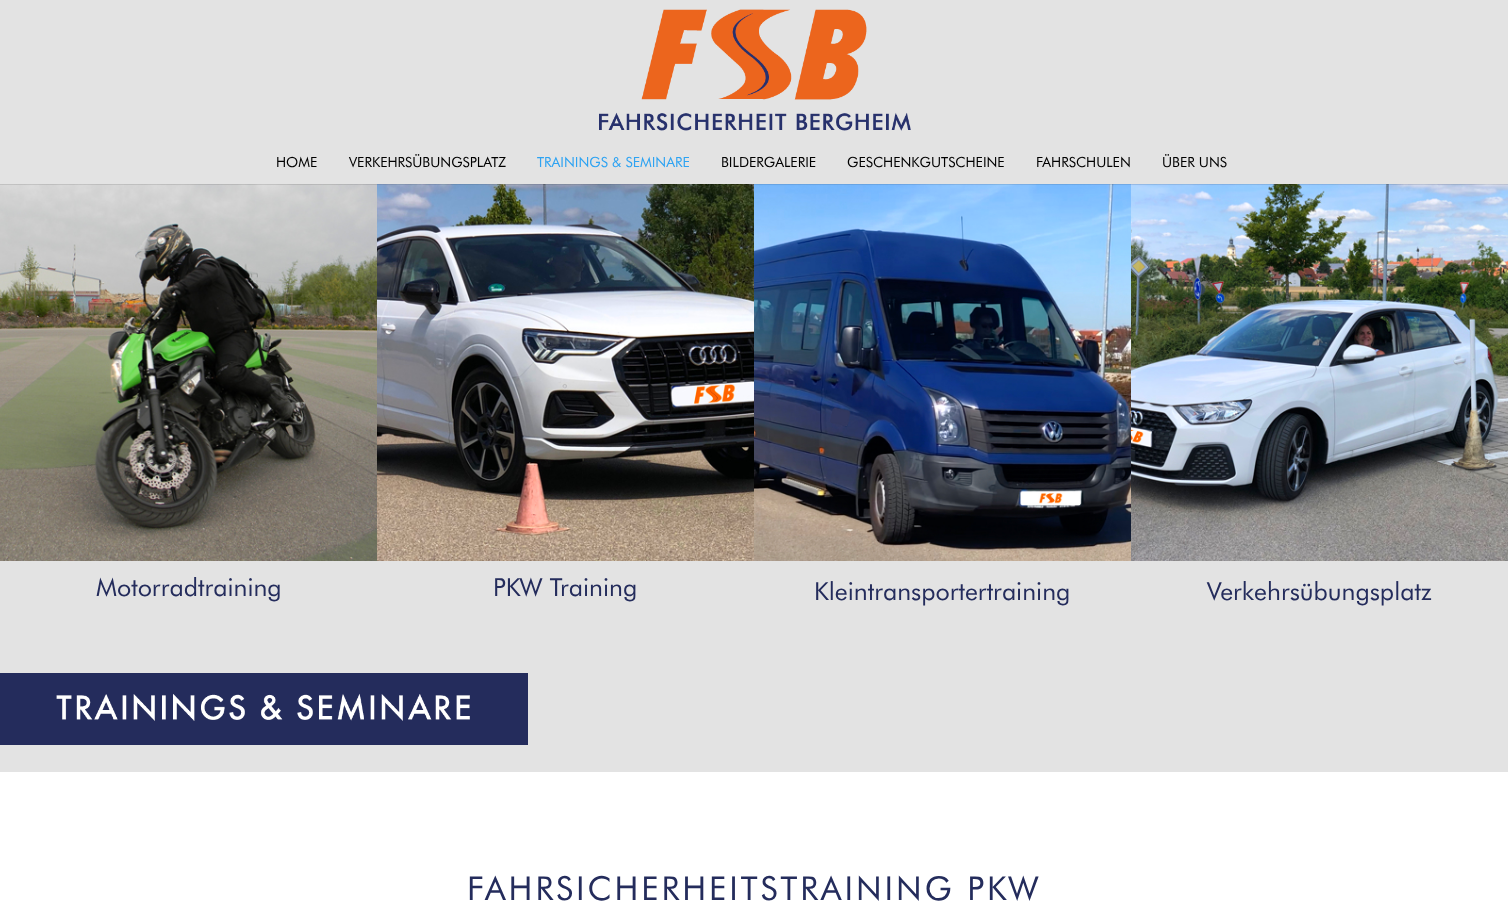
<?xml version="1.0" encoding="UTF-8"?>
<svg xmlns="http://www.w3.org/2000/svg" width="1508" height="909">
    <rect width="100%" height="100%" fill="#FFFFFF"/>
    <image x="0" y="184" width="377" height="377" href="img_02.png"/>
    <image x="377" y="184" width="377" height="377" href="img_03.png"/>
    <image x="754" y="184" width="377" height="377" href="img_04.png"/>
    <image x="1131" y="184" width="377" height="377" href="img_05.png"/>
    <rect x="0" y="184" width="1508" height="1" fill="#000000" fill-opacity="0.1"/>
    <rect x="0" y="0" width="1508" height="184" fill="#E3E3E3"/>
    <image x="599" y="9" width="312" height="122" href="img_01.png"/>
    <text x="276" y="167" font-family="Futura" font-size="14" fill="#000000">HOME</text>
    <text x="349" y="167" font-family="Futura" font-size="14" fill="#000000">VERKEHRSÜBUNGSPLATZ</text>
    <text x="537" y="167" font-family="Futura" font-size="14" fill="#2EA3F2">TRAININGS &amp; SEMINARE</text>
    <text x="721" y="167" font-family="Futura" font-size="14" fill="#000000">BILDERGALERIE</text>
    <text x="847" y="167" font-family="Futura" font-size="14" fill="#000000">GESCHENKGUTSCHEINE</text>
    <text x="1036" y="167" font-family="Futura" font-size="14" fill="#000000">FAHRSCHULEN</text>
    <text x="1162" y="167" font-family="Futura" font-size="14" fill="#000000">ÜBER UNS</text>
    <rect x="0" y="561" width="1508" height="211" fill="#E3E3E3"/>
    <text x="96" y="596" font-family="Futura" font-size="25" fill="#242C5C">Motorradtraining</text>
    <text x="493" y="596" font-family="Futura" font-size="25" fill="#242C5C">PKW Training</text>
    <text x="814" y="600" font-family="Futura" font-size="25" fill="#242C5C">Kleintransportertraining</text>
    <text x="1207" y="600" font-family="Futura" font-size="25" fill="#242C5C">Verkehrsübungsplatz</text>
    <image x="0" y="673" width="528" height="72" href="img_06.png"/>
    <text x="467" y="900" font-family="Futura" font-size="33" letter-spacing="3" fill="#242C5C">FAHRSICHERHEITSTRAINING PKW</text>
</svg>
